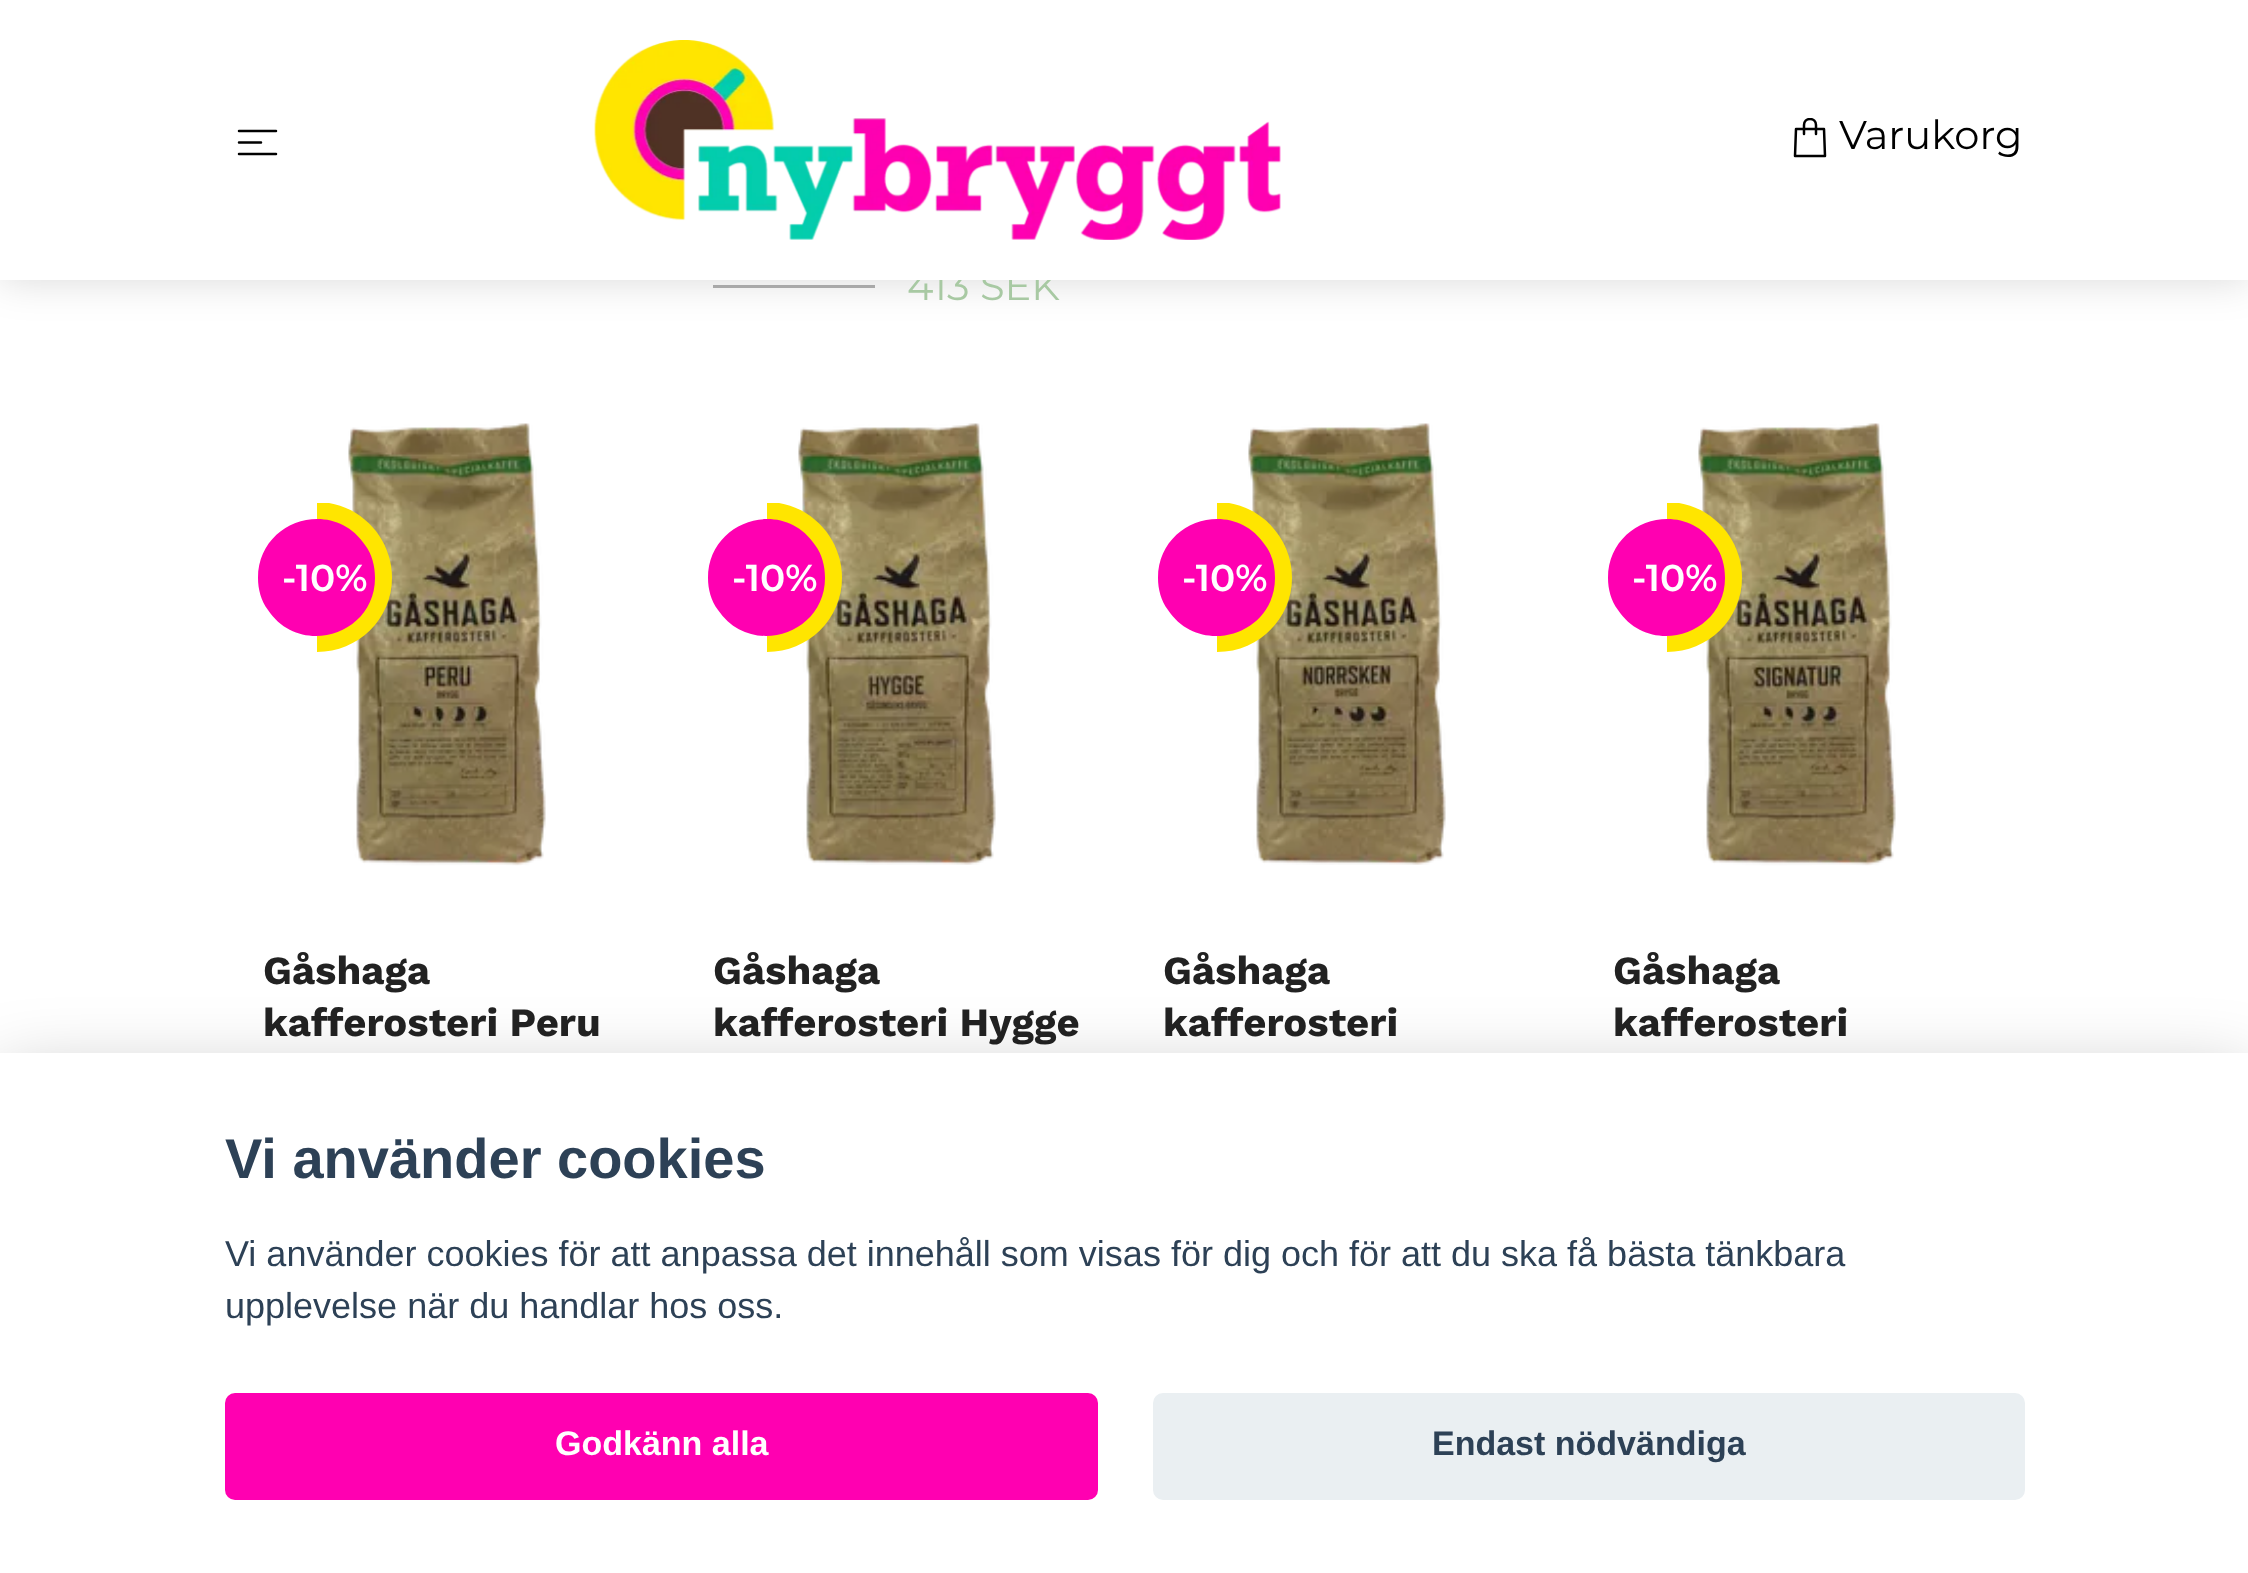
<?xml version="1.0" encoding="UTF-8"?>
<svg xmlns="http://www.w3.org/2000/svg" width="2248" height="1573">
    <defs>
        <filter id="blur1" x="-50%" y="-200%" width="200%" height="500%"><feGaussianBlur stdDeviation="20"/></filter>
        <clipPath id="clip1"><rect x="1780" y="118" width="60" height="40"/></clipPath>
        <clipPath id="clip2"><rect x="258" y="503" width="135" height="150"/></clipPath>
        <clipPath id="clip3"><rect x="708" y="503" width="135" height="150"/></clipPath>
        <clipPath id="clip4"><rect x="1158" y="503" width="135" height="150"/></clipPath>
        <clipPath id="clip5"><rect x="1608" y="503" width="135" height="150"/></clipPath>
        <filter id="blur2" x="-50%" y="-200%" width="200%" height="500%"><feGaussianBlur stdDeviation="37.5"/></filter>
    </defs>
    <rect width="100%" height="100%" fill="#FFFFFF"/>
    <rect x="713" y="285" width="162" height="3" fill="#B3B3B3"/>
    <rect x="0" y="0" width="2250" height="280" fill="#222222" fill-opacity="0.15" filter="url(#blur1)"/>
    <text x="907" y="300" font-family="Montserrat" font-size="40" fill="#A8C9A3">413 SEK</text>
    <rect x="0" y="0" width="2248" height="280" fill="#FFFFFF"/>
    <path d="M 239 131 H 276 M 239 142.5 H 261 M 239 154 H 276" fill="none" stroke="#000000" stroke-width="2.5" stroke-linecap="round" stroke-linejoin="round"/>
    <image x="594" y="40" width="687" height="200" href="img_01.png"/>
    <path d="M 1825 156 H 1795 L 1796 129 H 1824 Z" fill="none" stroke="#000000" stroke-width="2.5" stroke-linecap="round" stroke-linejoin="round"/>
    <g clip-path="url(#clip1)">
        <path d="M 1804 134 V 125 C 1804 121.5 1806.5 119 1810 119 C 1813.5 119 1816 121.5 1816 125 V 134" fill="none" stroke="#000000" stroke-width="2.5" stroke-linecap="round" stroke-linejoin="round"/>
    </g>
    <text x="1839" y="149" font-family="Montserrat" font-size="40" fill="#000000">Varukorg</text>
    <image x="348" y="423" width="198" height="443" href="img_02.png"/>
    <g clip-path="url(#clip2)">
        <path d="M 392 578 C 392 619 358 652 317 652 V 502 C 358 502 392 536 392 578 Z" fill="#FFE500" fill-rule="evenodd"/>
    </g>
    <path d="M 258 578 C 258 520 333 497 365 545 C 372 554 375 566 375 578 C 375 635 300 658 268 610 C 261 601 258 589 258 578 Z" fill="#FF00B1" fill-rule="evenodd"/>
    <text x="282" y="591" font-family="Montserrat" font-size="37.5" font-weight="600" fill="#FFFFFF">-10%</text>
    <text font-family="Work Sans" font-size="40" font-weight="700" fill="#222222">
        <tspan x="263" y="984">Gåshaga</tspan>
        <tspan x="263" y="1036">kafferosteri Peru</tspan>
    </text>
    <image x="798" y="423" width="198" height="442" href="img_03.png"/>
    <g clip-path="url(#clip3)">
        <path d="M 842 578 C 842 619 808 652 767 652 V 502 C 808 502 842 536 842 578 Z" fill="#FFE500" fill-rule="evenodd"/>
    </g>
    <path d="M 708 578 C 708 520 783 497 815 545 C 822 554 825 566 825 578 C 825 635 750 658 718 610 C 711 601 708 589 708 578 Z" fill="#FF00B1" fill-rule="evenodd"/>
    <text x="732" y="591" font-family="Montserrat" font-size="37.5" font-weight="600" fill="#FFFFFF">-10%</text>
    <text font-family="Work Sans" font-size="40" font-weight="700" fill="#222222">
        <tspan x="713" y="984">Gåshaga</tspan>
        <tspan x="713" y="1036">kafferosteri Hygge</tspan>
    </text>
    <image x="1248" y="423" width="198" height="442" href="img_04.png"/>
    <g clip-path="url(#clip4)">
        <path d="M 1292 578 C 1292 619 1258 652 1217 652 V 502 C 1258 502 1292 536 1292 578 Z" fill="#FFE500" fill-rule="evenodd"/>
    </g>
    <path d="M 1158 578 C 1158 520 1233 497 1265 545 C 1272 554 1275 566 1275 578 C 1275 635 1200 658 1168 610 C 1161 601 1158 589 1158 578 Z" fill="#FF00B1" fill-rule="evenodd"/>
    <text x="1182" y="591" font-family="Montserrat" font-size="37.5" font-weight="600" fill="#FFFFFF">-10%</text>
    <text font-family="Work Sans" font-size="40" font-weight="700" fill="#222222">
        <tspan x="1163" y="984">Gåshaga</tspan>
        <tspan x="1163" y="1036">kafferosteri</tspan>
    </text>
    <image x="1698" y="423" width="198" height="443" href="img_05.png"/>
    <g clip-path="url(#clip5)">
        <path d="M 1742 578 C 1742 619 1708 652 1667 652 V 502 C 1708 502 1742 536 1742 578 Z" fill="#FFE500" fill-rule="evenodd"/>
    </g>
    <path d="M 1608 578 C 1608 520 1683 497 1715 545 C 1722 554 1725 566 1725 578 C 1725 635 1650 658 1618 610 C 1611 601 1608 589 1608 578 Z" fill="#FF00B1" fill-rule="evenodd"/>
    <text x="1632" y="591" font-family="Montserrat" font-size="37.5" font-weight="600" fill="#FFFFFF">-10%</text>
    <text font-family="Work Sans" font-size="40" font-weight="700" fill="#222222">
        <tspan x="1613" y="984">Gåshaga</tspan>
        <tspan x="1613" y="1036">kafferosteri</tspan>
    </text>
    <rect x="0" y="1078" width="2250" height="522" fill="#020203" fill-opacity="0.28" filter="url(#blur2)"/>
    <rect x="0" y="1053" width="2248" height="520" fill="#FFFFFF"/>
    <text x="225" y="1178" font-family="Liberation Sans" font-size="56" font-weight="700" fill="#2D4156">Vi använder cookies</text>
    <text font-family="Liberation Sans" font-size="36" fill="#2D4156">
        <tspan x="225" y="1266">Vi använder cookies för att anpassa det innehåll som visas för dig och för att du ska få bästa tänkbara</tspan>
        <tspan x="225" y="1318">upplevelse när du handlar hos oss.</tspan>
    </text>
    <rect x="225" y="1393" width="873" height="107" rx="10" fill="#FF00B1"/>
    <text x="555" y="1455" font-family="Liberation Sans" font-size="34" font-weight="700" fill="#FFFFFF">Godkänn alla</text>
    <rect x="1153" y="1393" width="872" height="107" rx="10" fill="#EAEFF2"/>
    <text x="1432" y="1455" font-family="Liberation Sans" font-size="34" font-weight="700" fill="#2D4156">Endast nödvändiga</text>
</svg>
